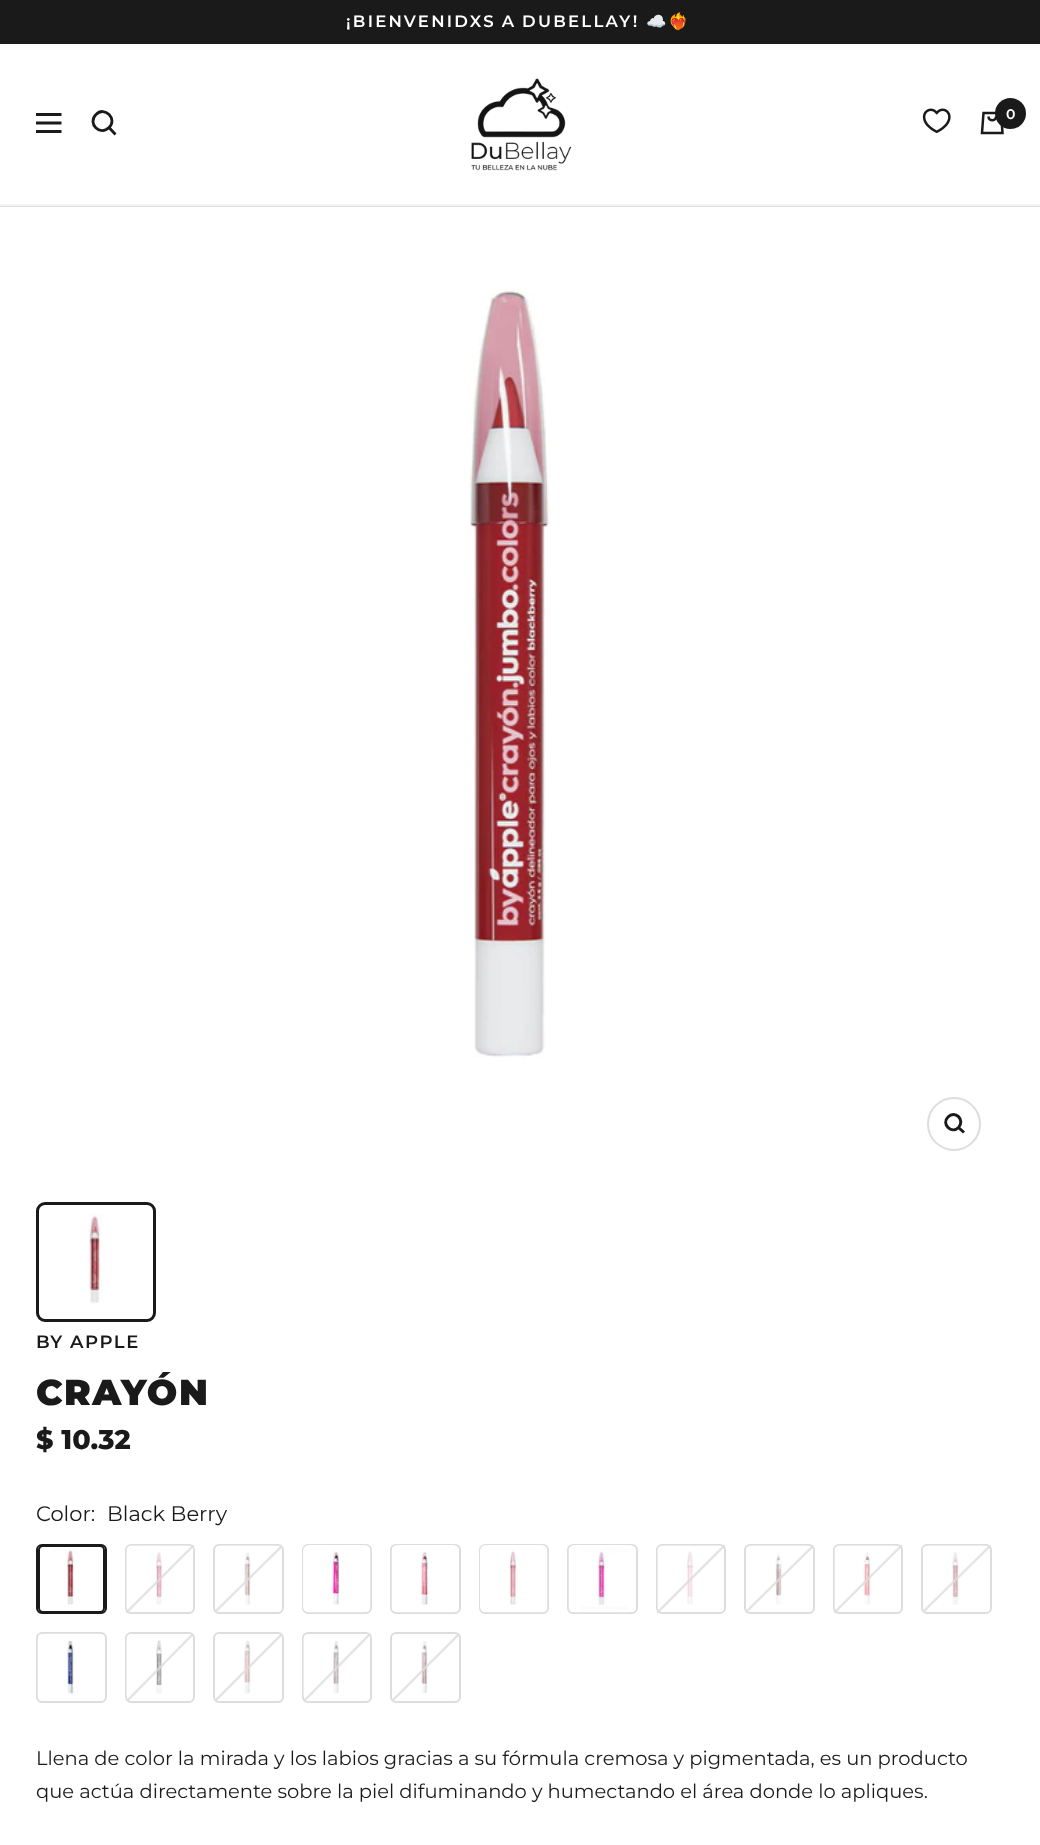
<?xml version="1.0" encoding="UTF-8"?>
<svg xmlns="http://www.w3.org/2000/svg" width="1040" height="1845">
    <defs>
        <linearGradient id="g1" gradientUnits="userSpaceOnUse" x1="126" y1="1545" x2="194" y2="1613"><stop offset="0.48" stop-color="#DDDDDD" stop-opacity="0"/><stop offset="0.5" stop-color="#DDDDDD"/><stop offset="0.52" stop-color="#DDDDDD" stop-opacity="0"/></linearGradient>
        <linearGradient id="g2" gradientUnits="userSpaceOnUse" x1="215" y1="1545" x2="282" y2="1613"><stop offset="0.48" stop-color="#DDDDDD" stop-opacity="0"/><stop offset="0.5" stop-color="#DDDDDD"/><stop offset="0.52" stop-color="#DDDDDD" stop-opacity="0"/></linearGradient>
        <linearGradient id="g3" gradientUnits="userSpaceOnUse" x1="657" y1="1545" x2="725" y2="1613"><stop offset="0.48" stop-color="#DDDDDD" stop-opacity="0"/><stop offset="0.5" stop-color="#DDDDDD"/><stop offset="0.52" stop-color="#DDDDDD" stop-opacity="0"/></linearGradient>
        <linearGradient id="g4" gradientUnits="userSpaceOnUse" x1="746" y1="1545" x2="813" y2="1613"><stop offset="0.48" stop-color="#DDDDDD" stop-opacity="0"/><stop offset="0.5" stop-color="#DDDDDD"/><stop offset="0.52" stop-color="#DDDDDD" stop-opacity="0"/></linearGradient>
        <linearGradient id="g5" gradientUnits="userSpaceOnUse" x1="834" y1="1545" x2="902" y2="1613"><stop offset="0.48" stop-color="#DDDDDD" stop-opacity="0"/><stop offset="0.5" stop-color="#DDDDDD"/><stop offset="0.52" stop-color="#DDDDDD" stop-opacity="0"/></linearGradient>
        <linearGradient id="g6" gradientUnits="userSpaceOnUse" x1="923" y1="1545" x2="990" y2="1613"><stop offset="0.48" stop-color="#DDDDDD" stop-opacity="0"/><stop offset="0.5" stop-color="#DDDDDD"/><stop offset="0.52" stop-color="#DDDDDD" stop-opacity="0"/></linearGradient>
        <linearGradient id="g7" gradientUnits="userSpaceOnUse" x1="126" y1="1634" x2="194" y2="1701"><stop offset="0.48" stop-color="#DDDDDD" stop-opacity="0"/><stop offset="0.5" stop-color="#DDDDDD"/><stop offset="0.52" stop-color="#DDDDDD" stop-opacity="0"/></linearGradient>
        <linearGradient id="g8" gradientUnits="userSpaceOnUse" x1="215" y1="1634" x2="282" y2="1701"><stop offset="0.48" stop-color="#DDDDDD" stop-opacity="0"/><stop offset="0.5" stop-color="#DDDDDD"/><stop offset="0.52" stop-color="#DDDDDD" stop-opacity="0"/></linearGradient>
        <linearGradient id="g9" gradientUnits="userSpaceOnUse" x1="303" y1="1634" x2="371" y2="1701"><stop offset="0.48" stop-color="#DDDDDD" stop-opacity="0"/><stop offset="0.5" stop-color="#DDDDDD"/><stop offset="0.52" stop-color="#DDDDDD" stop-opacity="0"/></linearGradient>
        <linearGradient id="g10" gradientUnits="userSpaceOnUse" x1="392" y1="1634" x2="459" y2="1701"><stop offset="0.48" stop-color="#DDDDDD" stop-opacity="0"/><stop offset="0.5" stop-color="#DDDDDD"/><stop offset="0.52" stop-color="#DDDDDD" stop-opacity="0"/></linearGradient>
    </defs>
    <rect width="100%" height="100%" fill="#FFFFFF"/>
    <rect x="0" y="0" width="1040" height="44" fill="#1A1A1A"/>
    <text x="346" y="27" word-spacing="-1" font-family="Montserrat" font-size="16.5" font-weight="600" letter-spacing="2.25" fill="#FFFFFF">¡BIENVENIDXS A DUBELLAY!</text>
    <text x="646" y="27" font-family="Noto Color Emoji" font-size="16.5" font-weight="700" letter-spacing="2.25" fill="#FFFFFF">☁️❤️‍🔥</text>
    <rect x="0" y="206" width="1040" height="1" fill="#DDDDDD"/>
    <rect x="0" y="204" width="1040" height="2" fill="#F4F4F4"/>
    <path d="M 36 114.5 H 61.5 M 36 131.5 H 61.5 Z M 36 123 H 61.5 Z" fill="none" stroke="#1A1A1A" stroke-width="2.8"/>
    <path d="M 109 127.5 C 118 119 104.5 105.5 96 114.5 C 87 123.5 100 136.5 109 127.5 Z M 109 127.5 L 115.5 134.5" fill="none" stroke="#1A1A1A" stroke-width="2.8"/>
    <image x="471" y="78" width="101" height="93" href="img_01.png"/>
    <image x="922" y="108" width="29" height="26" href="img_02.png"/>
    <path d="M 983.5 113 H 1001 L 1002.5 133 H 982 Z M 988.5 116.5 C 988.5 121.5 996 121.5 996 116.5" fill="none" stroke="#1A1A1A" stroke-width="2.5"/>
    <circle cx="1010.5" cy="113.5" r="15.5" fill="#1A1A1A"/>
    <text x="1006" y="119" font-family="Montserrat" font-size="14" font-weight="600" fill="#FFFFFF">0</text>
    <image x="469" y="289" width="82" height="769" href="img_03.png"/>
    <circle cx="954" cy="1124" r="26" fill="none" stroke="#DDDDDD" stroke-width="2"/>
    <path d="M 958.5 1127.5 C 965.5 1120 955 1109.5 948 1117 C 941 1124 951.5 1134.5 958.5 1127.5 Z M 958.5 1127.5 L 964 1132.5" fill="none" stroke="#1A1A1A" stroke-width="3"/>
    <image x="89" y="1214" width="14" height="90" href="img_04.png"/>
    <rect x="37.5" y="1203.5" width="117" height="117" rx="7.5" fill="none" stroke="#1A1A1A" stroke-width="3"/>
    <text x="36" y="1348" font-family="Montserrat" font-size="18" font-weight="600" letter-spacing="1.5" fill="#1A1A1A">BY APPLE</text>
    <text x="36" y="1405" font-family="Montserrat" font-size="36" font-weight="900" letter-spacing="1.5" fill="#1A1A1A">CRAYÓN</text>
    <text x="36" y="1449" font-family="Montserrat" font-size="27" font-weight="800" fill="#1A1A1A">$ 10.32</text>
    <text x="36" y="1521" font-family="Montserrat" font-size="21" fill="#1A1A1A">Color:</text>
    <text x="107" y="1521" font-family="Montserrat" font-size="21" fill="#1A1A1A">Black Berry</text>
    <rect x="37" y="1545" width="69" height="68" rx="5" fill="none" stroke="#DDDDDD" stroke-width="2"/>
    <image x="38" y="1546" width="67" height="66" href="img_05.png"/>
    <rect x="37" y="1545" width="69" height="68" rx="5" fill="none" stroke="#1A1A1A" stroke-width="2"/>
    <rect x="39" y="1546" width="65" height="66" rx="4" fill="none" stroke="#1A1A1A" stroke-width="2"/>
    <rect x="126" y="1545" width="68" height="68" rx="5" fill="none" stroke="#DDDDDD" stroke-width="2"/>
    <image x="126" y="1545" width="66" height="66" href="img_06.png"/>
    <rect x="126" y="1545" width="68" height="68" fill="url(#g1)"/>
    <rect x="214" y="1545" width="69" height="68" rx="5" fill="none" stroke="#DDDDDD" stroke-width="2"/>
    <image x="216" y="1545" width="63" height="60" href="img_07.png"/>
    <rect x="215" y="1545" width="67" height="68" fill="url(#g2)"/>
    <rect x="303" y="1545" width="68" height="68" rx="5" fill="none" stroke="#DDDDDD" stroke-width="2"/>
    <image x="303" y="1545" width="68" height="68" href="img_08.png"/>
    <rect x="391" y="1545" width="69" height="68" rx="5" fill="none" stroke="#DDDDDD" stroke-width="2"/>
    <image x="391" y="1545" width="68" height="68" href="img_09.png"/>
    <rect x="480" y="1545" width="68" height="68" rx="5" fill="none" stroke="#DDDDDD" stroke-width="2"/>
    <image x="480" y="1545" width="68" height="68" href="img_10.png"/>
    <rect x="568" y="1545" width="69" height="68" rx="5" fill="none" stroke="#DDDDDD" stroke-width="2"/>
    <image x="568" y="1545" width="68" height="68" href="img_11.png"/>
    <rect x="657" y="1545" width="68" height="68" rx="5" fill="none" stroke="#DDDDDD" stroke-width="2"/>
    <image x="657" y="1545" width="66" height="66" href="img_12.png"/>
    <rect x="657" y="1545" width="68" height="68" fill="url(#g3)"/>
    <rect x="745" y="1545" width="69" height="68" rx="5" fill="none" stroke="#DDDDDD" stroke-width="2"/>
    <image x="747" y="1545" width="63" height="60" href="img_13.png"/>
    <rect x="746" y="1545" width="67" height="68" fill="url(#g4)"/>
    <rect x="834" y="1545" width="68" height="68" rx="5" fill="none" stroke="#DDDDDD" stroke-width="2"/>
    <image x="834" y="1545" width="66" height="66" href="img_14.png"/>
    <rect x="834" y="1545" width="68" height="68" fill="url(#g5)"/>
    <rect x="922" y="1545" width="69" height="68" rx="5" fill="none" stroke="#DDDDDD" stroke-width="2"/>
    <image x="924" y="1545" width="63" height="60" href="img_15.png"/>
    <rect x="923" y="1545" width="67" height="68" fill="url(#g6)"/>
    <rect x="37" y="1633" width="69" height="69" rx="5" fill="none" stroke="#DDDDDD" stroke-width="2"/>
    <image x="37" y="1633" width="63" height="63" href="img_16.png"/>
    <rect x="126" y="1633" width="68" height="69" rx="5" fill="none" stroke="#DDDDDD" stroke-width="2"/>
    <image x="126" y="1635" width="36" height="63" href="img_17.png"/>
    <rect x="126" y="1634" width="68" height="67" fill="url(#g7)"/>
    <rect x="214" y="1633" width="69" height="69" rx="5" fill="none" stroke="#DDDDDD" stroke-width="2"/>
    <image x="244" y="1640" width="7" height="54" href="img_18.png"/>
    <rect x="215" y="1634" width="67" height="67" fill="url(#g8)"/>
    <rect x="303" y="1633" width="68" height="69" rx="5" fill="none" stroke="#DDDDDD" stroke-width="2"/>
    <image x="303" y="1635" width="36" height="63" href="img_19.png"/>
    <rect x="303" y="1634" width="68" height="67" fill="url(#g9)"/>
    <rect x="391" y="1633" width="69" height="69" rx="5" fill="none" stroke="#DDDDDD" stroke-width="2"/>
    <image x="421" y="1641" width="7" height="53" href="img_20.png"/>
    <rect x="392" y="1634" width="67" height="67" fill="url(#g10)"/>
    <text font-family="Montserrat" font-size="19.5" fill="#1A1A1A">
        <tspan x="36" y="1765">Llena de color la mirada y los labios gracias a su fórmula cremosa y pigmentada, es un producto</tspan>
        <tspan x="36" y="1798">que actúa directamente sobre la piel difuminando y humectando el área donde lo apliques.</tspan>
    </text>
</svg>
